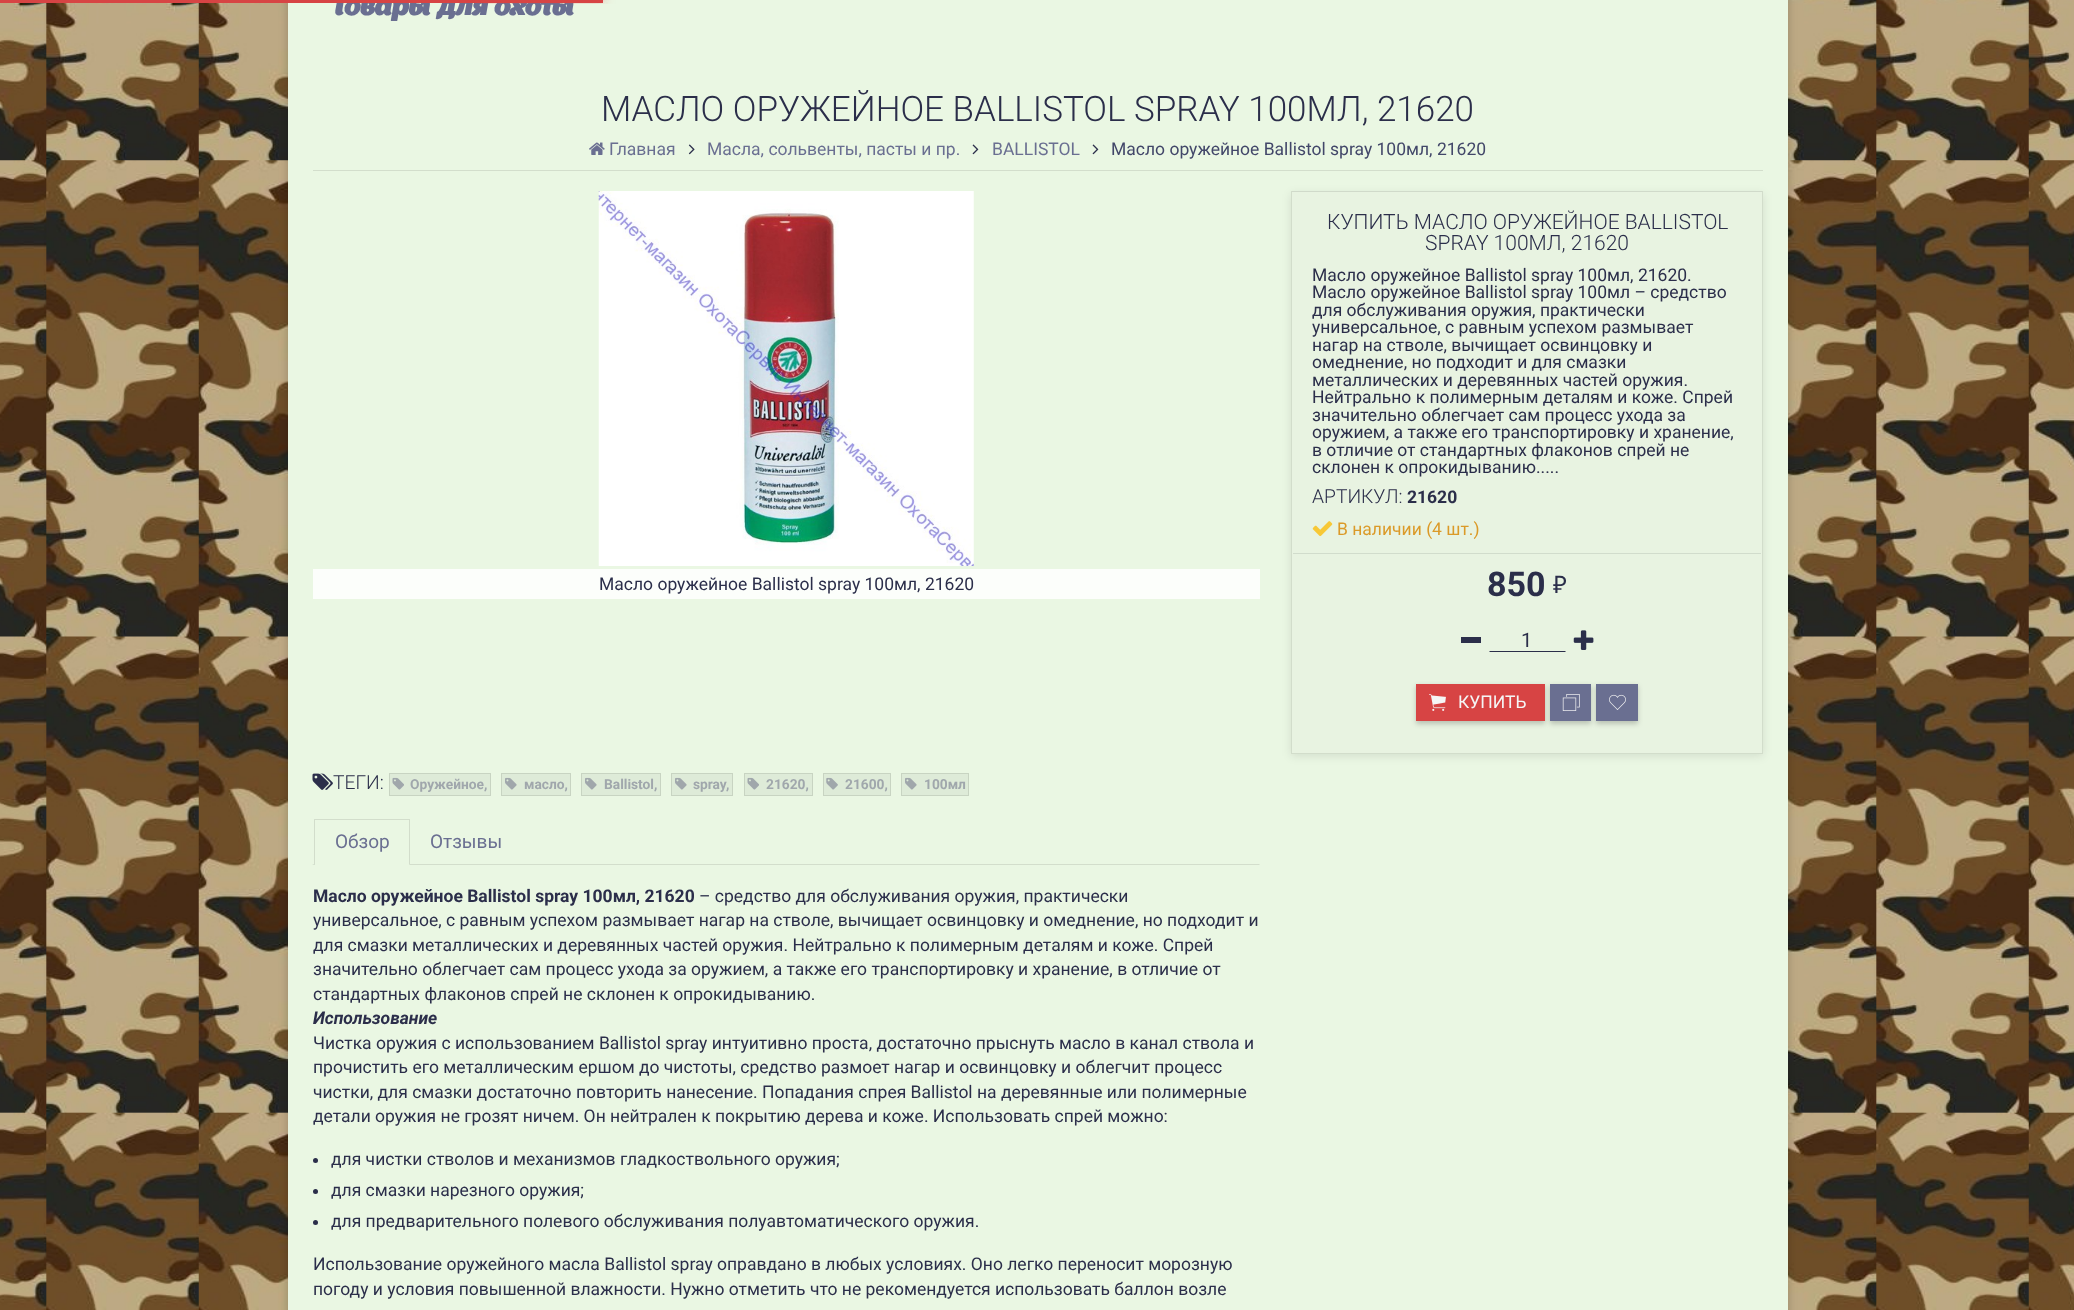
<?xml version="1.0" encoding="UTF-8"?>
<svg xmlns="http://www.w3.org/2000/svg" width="2074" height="1310">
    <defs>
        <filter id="blur1" x="-50%" y="-200%" width="200%" height="500%"><feGaussianBlur stdDeviation="5"/></filter>
        <filter id="blur2" x="-50%" y="-200%" width="200%" height="500%"><feGaussianBlur stdDeviation="3"/></filter>
        <filter id="blur3" x="-50%" y="-200%" width="200%" height="500%"><feGaussianBlur stdDeviation="6.5"/></filter>
        <clipPath id="clip1"><path d="M 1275 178 H 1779 V 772 H 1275 Z M 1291 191 H 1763 V 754 H 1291 Z" clip-rule="evenodd"/></clipPath>
        <filter id="blur4" x="-50%" y="-200%" width="200%" height="500%"><feGaussianBlur stdDeviation="2.5"/></filter>
    </defs>
    <rect width="100%" height="100%" fill="#FFFFFF"/>
    <image x="0" y="0" width="2074" height="1310" href="img_01.png"/>
    <rect x="288" y="-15" width="1500" height="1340" fill="#000000" fill-opacity="0.2" filter="url(#blur1)"/>
    <rect x="288" y="0" width="1500" height="1310" fill="#EAF7E3"/>
    <text x="331" y="15" font-family="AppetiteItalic" font-size="27.5" font-weight="700" font-style="italic" fill="#6A6F91">Товары для охоты</text>
    <rect x="0" y="0" width="603" height="3" fill="#D74444"/>
    <rect x="478" y="-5" width="125" height="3" fill="#D74444" filter="url(#blur2)"/>
    <rect x="478" y="-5" width="125" height="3" fill="#D74444" filter="url(#blur3)"/>
    <text x="601" y="121" font-family="Roboto" font-size="35" font-weight="300" fill="#2B2E4A">МАСЛО ОРУЖЕЙНОЕ BALLISTOL SPRAY 100МЛ, 21620</text>
    <rect x="313" y="170" width="1450" height="1" fill="#D3DECC"/>
    <image x="589" y="142" width="16" height="13" href="img_02.png"/>
    <text x="609" y="155" font-family="Roboto" font-size="17.5" fill="#6A6F91">Главная</text>
    <image x="688" y="144" width="7" height="11" href="img_03.png"/>
    <text x="707" y="155" font-family="Roboto" font-size="17.5" fill="#6A6F91">Масла, сольвенты, пасты и пр.</text>
    <image x="972" y="144" width="7" height="11" href="img_04.png"/>
    <text x="992" y="155" font-family="Roboto" font-size="17.5" fill="#6A6F91">BALLISTOL</text>
    <image x="1092" y="144" width="7" height="11" href="img_04.png"/>
    <text x="1111" y="155" font-family="Roboto" font-size="17.5" fill="#424769">Масло оружейное Ballistol spray 100мл, 21620</text>
    <image x="598" y="191" width="376" height="375" href="img_05.png"/>
    <rect x="313" y="569" width="947" height="30" fill="#FCFEFB"/>
    <text x="599" y="590" font-family="Roboto" font-size="17.5" fill="#2B2E4A">Масло оружейное Ballistol spray 100мл, 21620</text>
    <g clip-path="url(#clip1)">
        <rect x="1291" y="194" width="472" height="562" fill="#000000" fill-opacity="0.1" filter="url(#blur1)"/>
    </g>
    <rect x="1292" y="191" width="470" height="562" fill="#DCDCDC" fill-opacity="0.1"/>
    <rect x="1291.5" y="191.5" width="471" height="562" fill="none" stroke="#000000" stroke-opacity="0.1"/>
    <text x="1327" y="229" font-family="Roboto" font-size="21" font-weight="300" fill="#2B2E4A">КУПИТЬ МАСЛО ОРУЖЕЙНОЕ BALLISTOL</text>
    <text x="1425" y="250" font-family="Roboto" font-size="21" font-weight="300" fill="#2B2E4A">SPRAY 100МЛ, 21620</text>
    <text font-family="Roboto" font-size="17.5" fill="#2B2E4A">
        <tspan x="1312" y="281">Масло оружейное Ballistol spray 100мл, 21620.</tspan>
        <tspan x="1312" y="298">Масло оружейное Ballistol spray 100мл – средство</tspan>
        <tspan x="1312" y="316">для обслуживания оружия, практически</tspan>
        <tspan x="1312" y="333">универсальное, с равным успехом размывает</tspan>
        <tspan x="1312" y="351">нагар на стволе, вычищает освинцовку и</tspan>
        <tspan x="1312" y="368">омеднение, но подходит и для смазки</tspan>
        <tspan x="1312" y="386">металлических и деревянных частей оружия.</tspan>
        <tspan x="1312" y="403">Нейтрально к полимерным деталям и коже. Спрей</tspan>
        <tspan x="1312" y="421">значительно облегчает сам процесс ухода за</tspan>
        <tspan x="1312" y="438">оружием, а также его транспортировку и хранение,</tspan>
        <tspan x="1312" y="456">в отличие от стандартных флаконов спрей не</tspan>
        <tspan x="1312" y="473">склонен к опрокидыванию.....</tspan>
    </text>
    <text x="1312" y="503" font-family="Roboto" font-size="19.25" font-weight="300" fill="#2B2E4A">АРТИКУЛ:</text>
    <text x="1407" y="503" font-family="Roboto" font-size="17.5" font-weight="700" fill="#2B2E4A">21620</text>
    <image x="1312" y="521" width="21" height="16" href="img_06.png"/>
    <text x="1337" y="535" font-family="Roboto" font-size="17.5" fill="#DB9A28">В наличии (4 шт.)</text>
    <rect x="1293" y="553" width="468" height="1" fill="#D1DCCC"/>
    <text x="1487" y="596" font-family="Roboto" font-size="34" font-weight="700" fill="#2B2E4A">850</text>
    <text x="1553" y="593" font-family="Noto Sans" font-size="24" fill="#2B2E4A">₽</text>
    <rect x="1461" y="637" width="20" height="6" fill="#2B2E4A"/>
    <path d="M 1566 652 H 1489 L 1490 651 H 1565 Z" fill="#2B2E4A"/>
    <text x="1521" y="647" font-family="Roboto" font-size="20" fill="#2B2E4A">1</text>
    <image x="1573" y="630" width="21" height="20" href="img_07.png"/>
    <rect x="1416" y="686" width="129" height="38" fill="#000000" fill-opacity="0.2" filter="url(#blur4)"/>
    <rect x="1416" y="684" width="129" height="37" fill="#D74444"/>
    <image x="1429" y="694" width="17" height="17" href="img_08.png"/>
    <text x="1458" y="708" font-family="Roboto" font-size="17.5" fill="#F5F5F5">КУПИТЬ</text>
    <rect x="1550" y="686" width="41" height="38" fill="#000000" fill-opacity="0.2" filter="url(#blur4)"/>
    <rect x="1550" y="684" width="41" height="37" fill="#6A6F91"/>
    <image x="1562" y="694" width="18" height="17" href="img_09.png"/>
    <rect x="1596" y="686" width="42" height="38" fill="#000000" fill-opacity="0.2" filter="url(#blur4)"/>
    <rect x="1596" y="684" width="42" height="37" fill="#6A6F91"/>
    <image x="1609" y="694" width="17" height="16" href="img_10.png"/>
    <image x="312" y="773" width="21" height="17" href="img_11.png"/>
    <text x="333" y="789" font-family="Roboto" font-size="19.25" font-weight="300" fill="#2B2E4A">ТЕГИ:</text>
    <rect x="389.5" y="773.5" width="101" height="22" fill="#DEEBD8" stroke="#C8D4C2"/>
    <image x="392" y="777" width="12" height="13" href="img_12.png"/>
    <text x="410" y="789" font-family="Roboto" font-size="13.75" font-weight="700" fill="#A0A7AC">Оружейное,</text>
    <rect x="501.5" y="773.5" width="69" height="22" fill="#DEEBD8" stroke="#C8D4C2"/>
    <image x="505" y="777" width="12" height="13" href="img_13.png"/>
    <text x="524" y="789" font-family="Roboto" font-size="13.75" font-weight="700" fill="#A0A7AC">масло,</text>
    <rect x="581.5" y="773.5" width="79" height="22" fill="#DEEBD8" stroke="#C8D4C2"/>
    <image x="585" y="777" width="12" height="13" href="img_13.png"/>
    <text x="604" y="789" font-family="Roboto" font-size="13.75" font-weight="700" fill="#A0A7AC">Ballistol,</text>
    <rect x="671.5" y="773.5" width="61" height="22" fill="#DEEBD8" stroke="#C8D4C2"/>
    <image x="675" y="777" width="12" height="13" href="img_13.png"/>
    <text x="693" y="789" font-family="Roboto" font-size="13.75" font-weight="700" fill="#A0A7AC">spray</text>
    <text x="726" y="789" font-family="Roboto" font-size="13.75" font-weight="700" fill="#A0A7AC">,</text>
    <rect x="744.5" y="773.5" width="68" height="22" fill="#DEEBD8" stroke="#C8D4C2"/>
    <image x="747" y="777" width="12" height="13" href="img_12.png"/>
    <text x="766" y="789" font-family="Roboto" font-size="13.75" font-weight="700" fill="#A0A7AC">21620,</text>
    <rect x="823.5" y="773.5" width="67" height="22" fill="#DEEBD8" stroke="#C8D4C2"/>
    <image x="826" y="777" width="12" height="13" href="img_14.png"/>
    <text x="845" y="789" font-family="Roboto" font-size="13.75" font-weight="700" fill="#A0A7AC">21600,</text>
    <rect x="901.5" y="773.5" width="67" height="22" fill="#DEEBD8" stroke="#C8D4C2"/>
    <image x="905" y="777" width="12" height="13" href="img_13.png"/>
    <text x="924" y="789" font-family="Roboto" font-size="13.75" font-weight="700" fill="#A0A7AC">100мл</text>
    <path d="M 1260 865 H 312 L 314 864 H 1259 Z" fill="#D3DECC"/>
    <path d="M 314 819 H 410 L 409 820 H 315 Z" fill="#D3DECC"/>
    <path d="M 410 819 V 865 L 409 864 V 820 Z" fill="#000000" fill-opacity="0.1"/>
    <path d="M 410 865 H 314 L 315 864 H 409 Z" fill="#EAF7E3"/>
    <path d="M 314 865 V 819 L 315 820 V 864 Z" fill="#000000" fill-opacity="0.1"/>
    <text x="335" y="848" font-family="Roboto" font-size="19" fill="#6A6F91">Обзор</text>
    <text x="430" y="848" font-family="Roboto" font-size="19" fill="#6A6F91">Отзывы</text>
    <text x="313" y="902" font-family="Roboto" font-size="17.5" font-weight="700" fill="#2B2E4A">Масло оружейное Ballistol spray 100мл, 21620</text>
    <text x="699" y="902" font-family="Roboto" font-size="17.5" fill="#2B2E4A">– средство для обслуживания оружия, практически</text>
    <text font-family="Roboto" font-size="17.5" fill="#2B2E4A">
        <tspan x="313" y="926">универсальное, с равным успехом размывает нагар на стволе, вычищает освинцовку и омеднение, но подходит и</tspan>
        <tspan x="313" y="951">для смазки металлических и деревянных частей оружия. Нейтрально к полимерным деталям и коже. Спрей</tspan>
        <tspan x="313" y="975">значительно облегчает сам процесс ухода за оружием, а также его транспортировку и хранение, в отличие от</tspan>
        <tspan x="313" y="1000">стандартных флаконов спрей не склонен к опрокидыванию.</tspan>
    </text>
    <text x="313" y="1024" font-family="Roboto" font-size="17.5" font-weight="700" font-style="italic" fill="#2B2E4A">Использование</text>
    <text font-family="Roboto" font-size="17.5" fill="#2B2E4A">
        <tspan x="313" y="1049">Чистка оружия с использованием Ballistol spray интуитивно проста, достаточно прыснуть масло в канал ствола и</tspan>
        <tspan x="313" y="1073">прочистить его металлическим ершом до чистоты, средство размоет нагар и освинцовку и облегчит процесс</tspan>
        <tspan x="313" y="1098">чистки, для смазки достаточно повторить нанесение. Попадания спрея Ballistol на деревянные или полимерные</tspan>
        <tspan x="313" y="1122">детали оружия не грозят ничем. Он нейтрален к покрытию дерева и коже. Использовать спрей можно:</tspan>
    </text>
    <circle cx="315.5" cy="1160.5" r="2.5" fill="#2B2E4A"/>
    <text x="331" y="1165" font-family="Roboto" font-size="17.5" fill="#2B2E4A">для чистки стволов и механизмов гладкоствольного оружия;</text>
    <circle cx="315.5" cy="1191.5" r="2.5" fill="#2B2E4A"/>
    <text x="331" y="1196" font-family="Roboto" font-size="17.5" fill="#2B2E4A">для смазки нарезного оружия;</text>
    <circle cx="315.5" cy="1222.5" r="2.5" fill="#2B2E4A"/>
    <text x="331" y="1227" font-family="Roboto" font-size="17.5" fill="#2B2E4A">для предварительного полевого обслуживания полуавтоматического оружия.</text>
    <text font-family="Roboto" font-size="17.5" fill="#2B2E4A">
        <tspan x="313" y="1270">Использование оружейного масла Ballistol spray оправдано в любых условиях. Оно легко переносит морозную</tspan>
        <tspan x="313" y="1295">погоду и условия повышенной влажности. Нужно отметить что не рекомендуется использовать баллон возле</tspan>
    </text>
</svg>
